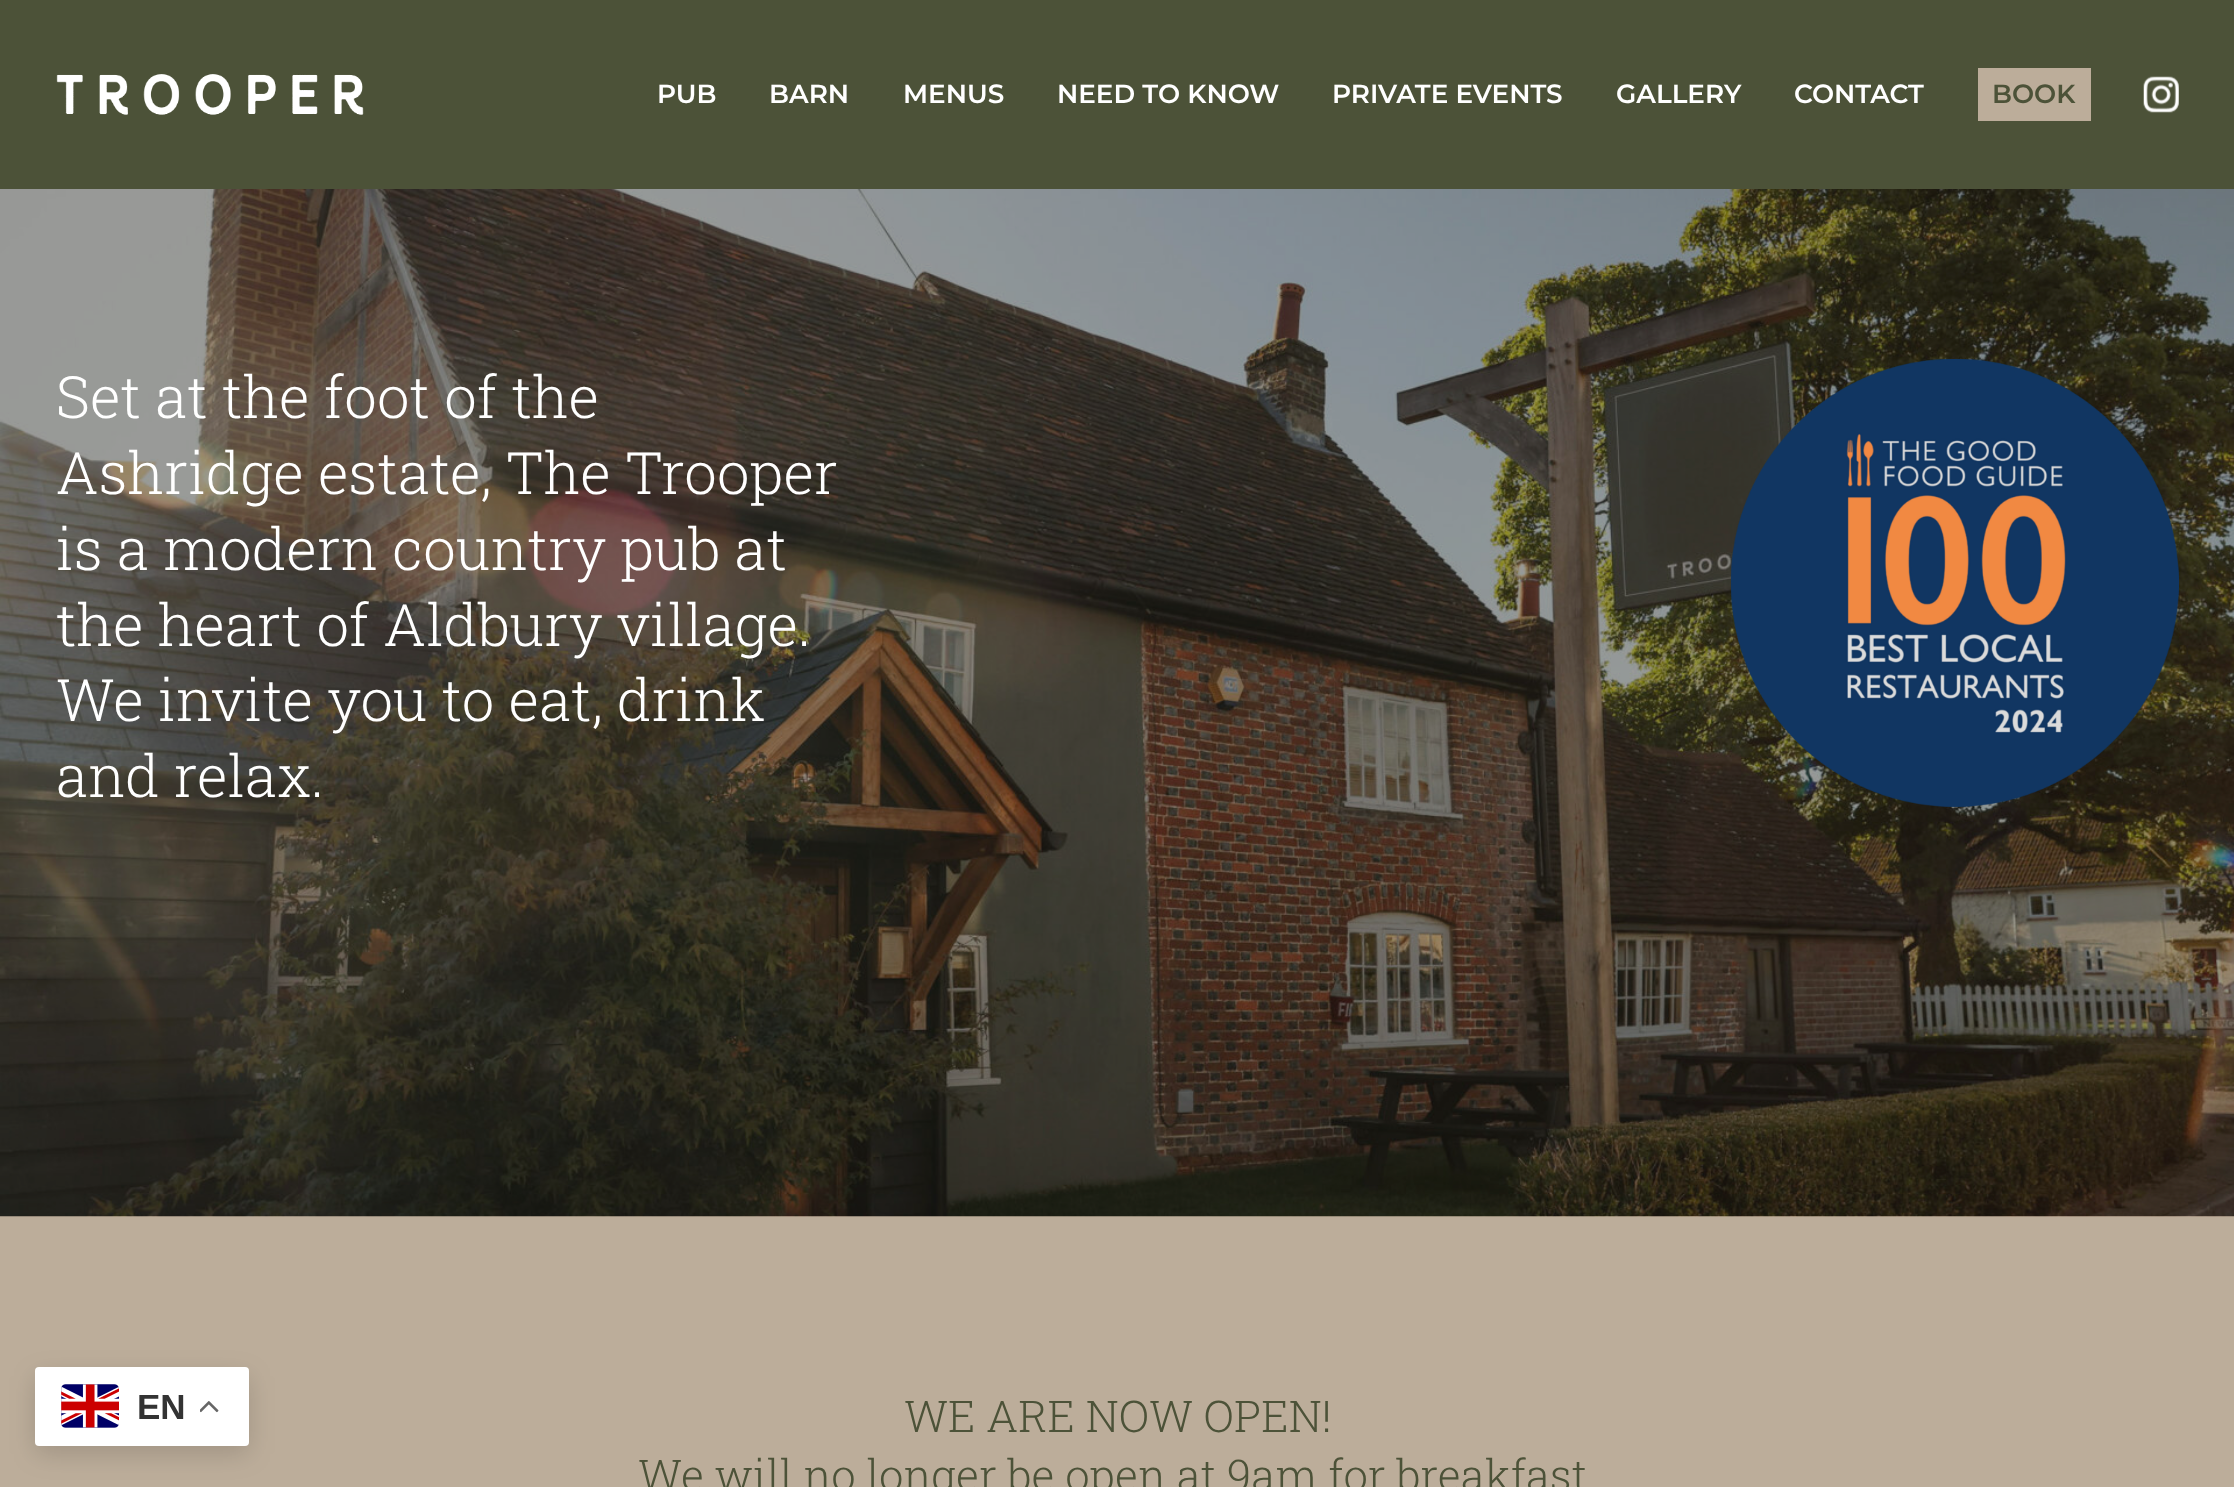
<?xml version="1.0" encoding="UTF-8"?>
<svg xmlns="http://www.w3.org/2000/svg" width="2234" height="1487">
    <defs>
        <filter id="blur1" x="-50%" y="-200%" width="200%" height="500%"><feGaussianBlur stdDeviation="13"/></filter>
    </defs>
    <rect width="100%" height="100%" fill="#BCAD9A"/>
    <rect x="0" y="0" width="2234" height="189" fill="#4C5238"/>
    <image x="56" y="74" width="308" height="41" href="img_01.png"/>
    <text x="657" y="103" font-family="Montserrat" font-size="26.25" font-weight="600" fill="#FFFFFF">PUB</text>
    <text x="769" y="103" font-family="Montserrat" font-size="26.25" font-weight="600" fill="#FFFFFF">BARN</text>
    <text x="903" y="103" font-family="Montserrat" font-size="26.25" font-weight="600" fill="#FFFFFF">MENUS</text>
    <text x="1057" y="103" font-family="Montserrat" font-size="26.25" font-weight="600" fill="#FFFFFF">NEED TO KNOW</text>
    <text x="1332" y="103" font-family="Montserrat" font-size="26.25" font-weight="600" fill="#FFFFFF">PRIVATE EVENTS</text>
    <text x="1616" y="103" font-family="Montserrat" font-size="26.25" font-weight="600" fill="#FFFFFF">GALLERY</text>
    <text x="1794" y="103" font-family="Montserrat" font-size="26.25" font-weight="600" fill="#FFFFFF">CONTACT</text>
    <rect x="1978" y="68" width="113" height="53" fill="#BCAD9A"/>
    <text x="1992" y="103" font-family="Montserrat" font-size="26.25" font-weight="600" fill="#4C5238">BOOK</text>
    <image x="2143" y="76" width="36" height="37" href="img_02.png"/>
    <image x="0" y="189" width="2234" height="1028" href="img_03.png"/>
    <text font-family="Roboto Slab" font-size="58.25" font-weight="300" fill="#FFFFFF">
        <tspan x="56" y="418">Set at the foot of the</tspan>
        <tspan x="56" y="494">Ashridge estate, The Trooper</tspan>
        <tspan x="56" y="570">is a modern country pub at</tspan>
        <tspan x="56" y="646">the heart of Aldbury village.</tspan>
        <tspan x="56" y="721">We invite you to eat, drink</tspan>
        <tspan x="56" y="797">and relax.</tspan>
    </text>
    <image x="1731" y="359" width="448" height="448" href="img_04.png"/>
    <text x="904" y="1432" font-family="Roboto Slab" font-size="43.75" font-weight="300" fill="#4C5238">WE ARE NOW OPEN!</text>
    <text x="638" y="1491" font-family="Roboto Slab" font-size="43.75" font-weight="300" fill="#4C5238">We will no longer be open at 9am for breakfast</text>
    <rect x="35" y="1376" width="214" height="78" rx="4" fill="#000000" fill-opacity="0.15" filter="url(#blur1)"/>
    <rect x="35" y="1367" width="214" height="79" rx="4" fill="#FFFFFF"/>
    <image x="61" y="1384" width="58" height="44" href="img_05.png"/>
    <text x="137" y="1419" font-family="Liberation Sans" font-size="35" font-weight="700" fill="#333333">EN</text>
    <image x="200" y="1401" width="19" height="12" href="img_06.png"/>
</svg>
